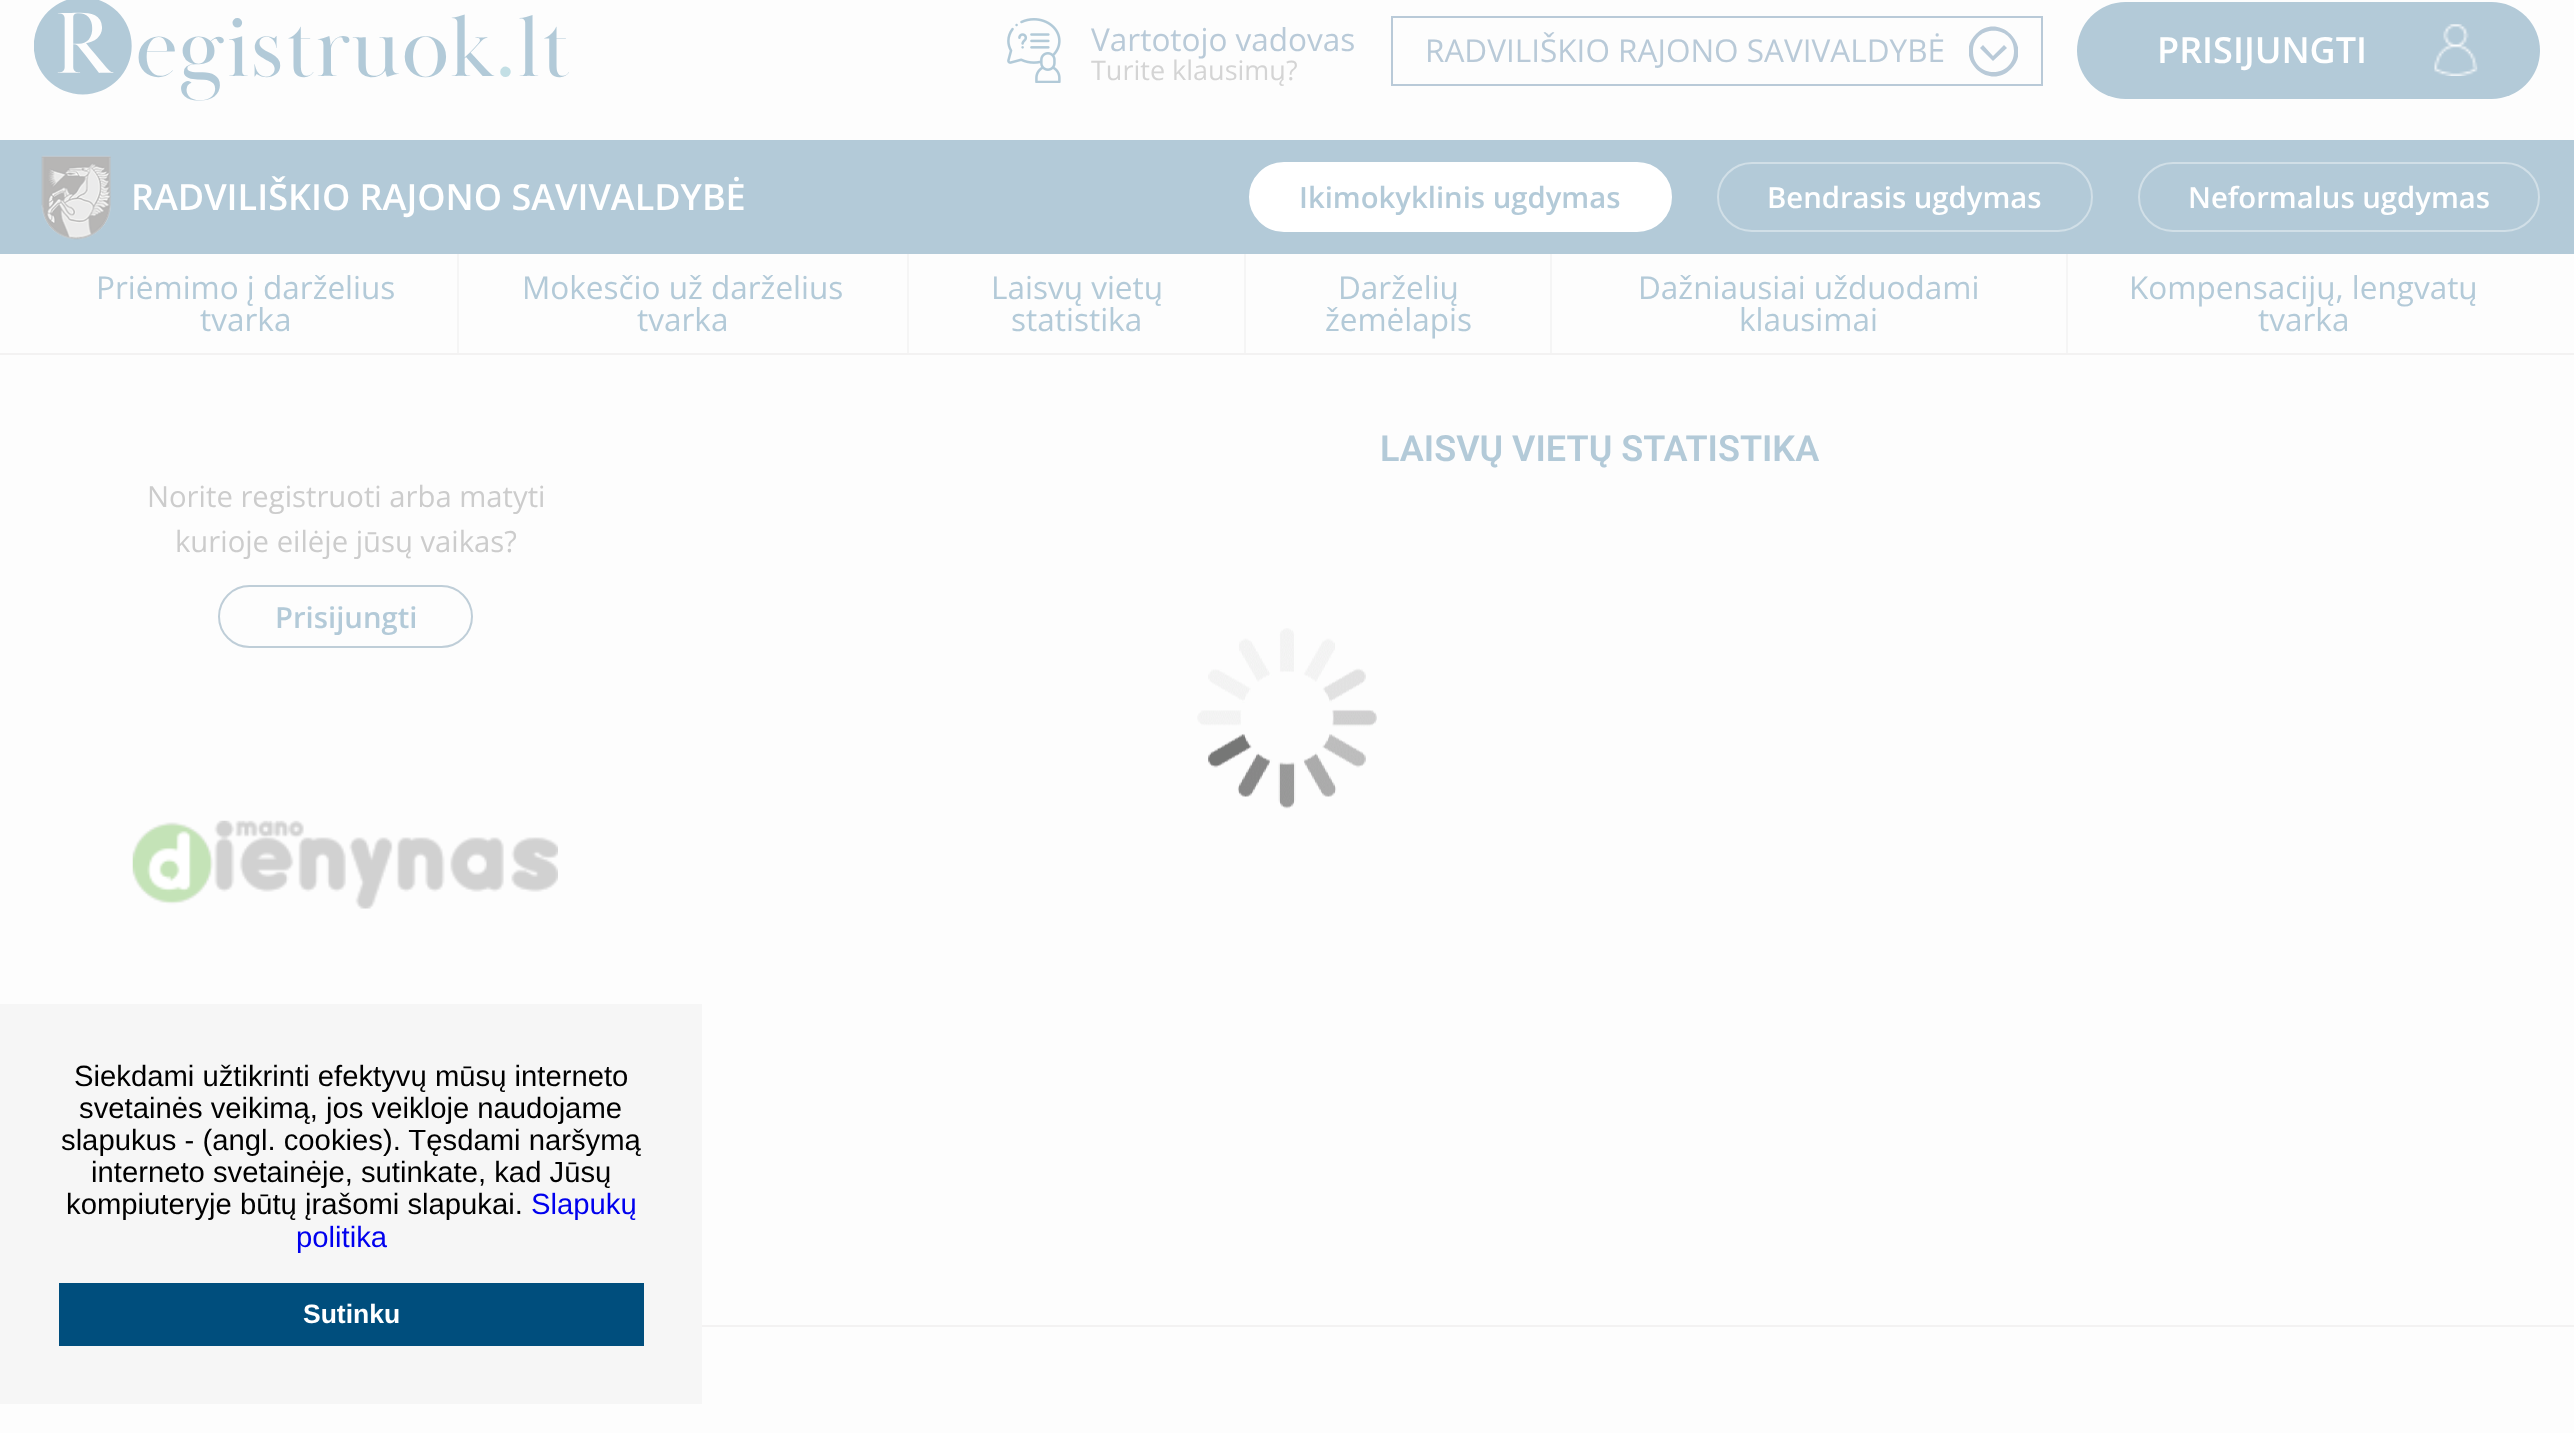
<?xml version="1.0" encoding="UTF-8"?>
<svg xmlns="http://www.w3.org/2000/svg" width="2574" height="1433">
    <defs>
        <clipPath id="clip1"><rect x="1969" y="25" width="49" height="52"/></clipPath>
    </defs>
    <rect width="100%" height="100%" fill="#FDFDFD"/>
    <image x="34" y="0" width="535" height="101" href="img_01.png"/>
    <image x="1007" y="18" width="54" height="65" href="img_02.png"/>
    <text x="1091" y="51" font-family="Open Sans" font-size="31.5" fill="#B9CAD8">Vartotojo vadovas</text>
    <text x="1091" y="80" font-family="Open Sans" font-size="27" fill="#D4D4D4">Turite klausimų?</text>
    <g clip-path="url(#clip1)">
        <path d="M 1980 48 L 1993 61 L 2007 48 L 2004 45 L 1993 56 L 1983 45 Z M 1973 51 C 1973 24 2014 24 2014 51 C 2014 79 1973 79 1973 51 Z M 1976 34 C 1953 57 1988 92 2011 69 C 2034 46 1999 11 1976 34 Z" fill="#B9CAD8"/>
    </g>
    <rect x="1392" y="17" width="650" height="68" fill="none" stroke="#B9CAD8" stroke-width="2"/>
    <text x="1425" y="62" font-family="Open Sans" font-size="31.5" fill="#B9CAD8">RADVILIŠKIO RAJONO SAVIVALDYBĖ</text>
    <rect x="2077" y="2" width="463" height="97" rx="48.5" fill="#B3CAD8"/>
    <text x="2157" y="63" font-family="Open Sans" font-size="36" font-weight="600" fill="#FFFFFF">PRISIJUNGTI</text>
    <image x="2434" y="24" width="44" height="52" href="img_03.png"/>
    <rect x="0" y="140" width="2574" height="114" fill="#B3CAD8"/>
    <image x="41" y="155" width="70" height="85" href="img_04.png"/>
    <text x="131" y="210" font-family="Open Sans" font-size="36" font-weight="600" fill="#FFFFFF">RADVILIŠKIO RAJONO SAVIVALDYBĖ</text>
    <rect x="1250" y="163" width="421" height="68" rx="34" fill="#FFFFFF" stroke="#FFFFFF" stroke-width="2"/>
    <text x="1299" y="208" font-family="Open Sans" font-size="29.25" font-weight="600" fill="#B3CAD8">Ikimokyklinis ugdymas</text>
    <rect x="1718" y="163" width="374" height="68" rx="34" fill="none" stroke="#D1DFE7" stroke-width="2"/>
    <text x="1767" y="208" font-family="Open Sans" font-size="29.25" font-weight="600" fill="#FFFFFF">Bendrasis ugdymas</text>
    <rect x="2139" y="163" width="400" height="68" rx="34" fill="none" stroke="#D1DFE7" stroke-width="2"/>
    <text x="2188" y="208" font-family="Open Sans" font-size="29.25" font-weight="600" fill="#FFFFFF">Neformalus ugdymas</text>
    <rect x="0" y="353" width="2574" height="2" fill="#F3F2F2"/>
    <rect x="457" y="254" width="2" height="99" fill="#F5F5F5"/>
    <text x="96" y="299" font-family="Open Sans" font-size="31.5" fill="#B3CAD8">Priėmimo į darželius</text>
    <text x="200" y="331" font-family="Open Sans" font-size="31.5" fill="#B3CAD8">tvarka</text>
    <rect x="907" y="254" width="2" height="99" fill="#F5F5F5"/>
    <text x="522" y="299" font-family="Open Sans" font-size="31.5" fill="#B3CAD8">Mokesčio už darželius</text>
    <text x="637" y="331" font-family="Open Sans" font-size="31.5" fill="#B3CAD8">tvarka</text>
    <rect x="1244" y="254" width="2" height="99" fill="#F5F5F5"/>
    <text x="991" y="299" font-family="Open Sans" font-size="31.5" fill="#B3CAD8">Laisvų vietų</text>
    <text x="1011" y="331" font-family="Open Sans" font-size="31.5" fill="#B3CAD8">statistika</text>
    <rect x="1550" y="254" width="2" height="99" fill="#F5F5F5"/>
    <text x="1338" y="299" font-family="Open Sans" font-size="31.5" fill="#B3CAD8">Darželių</text>
    <text x="1325" y="331" font-family="Open Sans" font-size="31.5" fill="#B3CAD8">žemėlapis</text>
    <rect x="2066" y="254" width="2" height="99" fill="#F5F5F5"/>
    <text x="1638" y="299" font-family="Open Sans" font-size="31.5" fill="#B3CAD8">Dažniausiai užduodami</text>
    <text x="1739" y="331" font-family="Open Sans" font-size="31.5" fill="#B3CAD8">klausimai</text>
    <text x="2129" y="299" font-family="Open Sans" font-size="31.5" fill="#B3CAD8">Kompensacijų, lengvatų</text>
    <text x="2258" y="331" font-family="Open Sans" font-size="31.5" fill="#B3CAD8">tvarka</text>
    <text x="1380" y="461" font-family="Roboto" font-size="36" font-weight="600" fill="#B3CAD8">LAISVŲ VIETŲ STATISTIKA</text>
    <text x="147" y="507" font-family="Open Sans" font-size="29.25" fill="#CCCCCC">Norite registruoti arba matyti</text>
    <text x="175" y="552" font-family="Open Sans" font-size="29.25" fill="#CCCCCC">kurioje eilėje jūsų vaikas?</text>
    <rect x="219" y="586" width="253" height="61" rx="30.5" fill="none" stroke="#BFCED8" stroke-width="2"/>
    <text x="275" y="628" font-family="Open Sans" font-size="29.25" font-weight="600" fill="#B3CAD8">Prisijungti</text>
    <image x="132" y="820" width="426" height="89" href="img_05.png"/>
    <image x="1197" y="628" width="180" height="181" href="img_06.png"/>
    <rect x="0" y="1004" width="702" height="400" fill="#F6F6F6"/>
    <text x="74" y="1086" font-family="Liberation Sans" font-size="29.25" fill="#000000">Siekdami užtikrinti efektyvų mūsų interneto</text>
    <text x="79" y="1118" font-family="Liberation Sans" font-size="29.25" fill="#000000">svetainės veikimą, jos veikloje naudojame</text>
    <text x="61" y="1150" font-family="Liberation Sans" font-size="29.25" fill="#000000">slapukus - (angl. cookies). Tęsdami naršymą</text>
    <text x="91" y="1182" font-family="Liberation Sans" font-size="29.25" fill="#000000">interneto svetainėje, sutinkate, kad Jūsų</text>
    <text x="66" y="1214" font-family="Liberation Sans" font-size="29.25" fill="#000000">kompiuteryje būtų įrašomi slapukai.</text>
    <text x="531" y="1214" font-family="Liberation Sans" font-size="29.25" fill="#0000EE">Slapukų</text>
    <text x="296" y="1247" font-family="Liberation Sans" font-size="29.25" fill="#0000EE">politika</text>
    <rect x="59" y="1283" width="585" height="63" fill="#004E7D"/>
    <text x="303" y="1323" font-family="Liberation Sans" font-size="26.5" font-weight="700" fill="#FFFFFF">Sutinku</text>
    <rect x="702" y="1325" width="1872" height="2" fill="#F3F2F2"/>
</svg>
